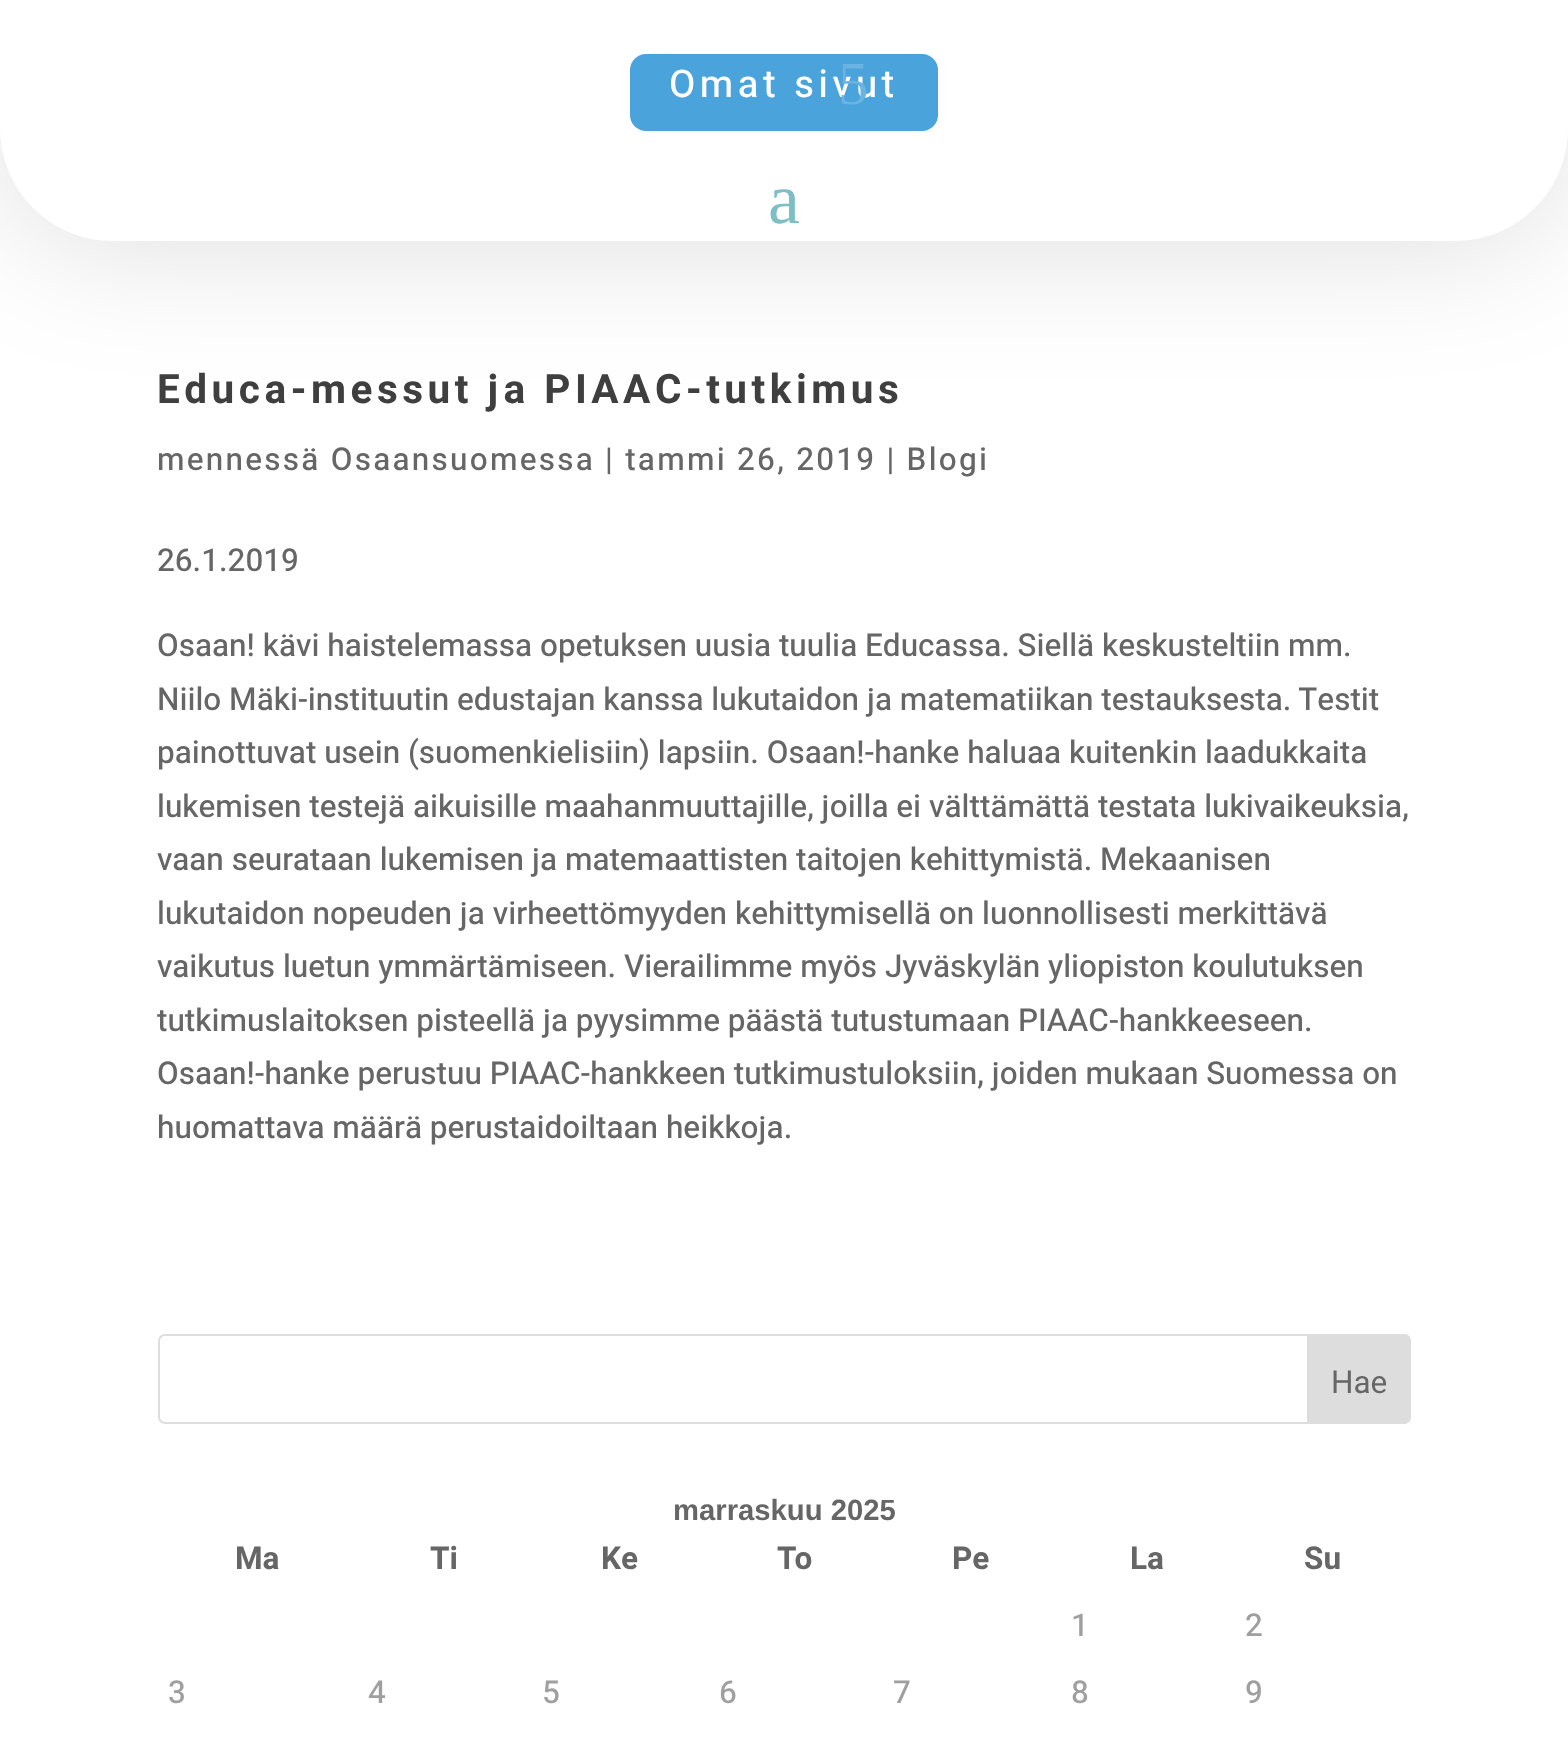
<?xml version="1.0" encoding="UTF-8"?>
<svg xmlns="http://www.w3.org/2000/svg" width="1568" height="1760">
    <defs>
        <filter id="blur1" x="-50%" y="-200%" width="200%" height="500%"><feGaussianBlur stdDeviation="67.5"/></filter>
    </defs>
    <rect width="100%" height="100%" fill="#FFFFFF"/>
    <rect x="0" y="5" width="1568" height="240" rx="113" fill="#000000" fill-opacity="0.13" filter="url(#blur1)"/>
    <path d="M 0 0 H 1568 V 128 C 1568 190.5 1517.5 241 1455 241 H 113 C 50.5 241 0 190.5 0 128 Z" fill="#FFFFFF"/>
    <rect x="630" y="54" width="308" height="77" rx="16" fill="#4AA3DB"/>
    <text x="669" y="97" font-family="Heebo" font-size="38.25" font-weight="500" letter-spacing="4.5" fill="#FFFFFF">Omat sivut</text>
    <text x="838" y="104" font-family="Liberation Serif" font-size="61" letter-spacing="4.5" fill="#6BB4E2">5</text>
    <text x="768" y="223" font-family="Liberation Serif" font-size="72" fill="#7EBEC5">a</text>
    <text x="157" y="403" font-family="Heebo" font-size="40.5" font-weight="700" letter-spacing="4.5" fill="#3F3F3F">Educa-messut ja PIAAC-tutkimus</text>
    <text x="157" y="470" font-family="Heebo" font-size="31.5" font-weight="500" letter-spacing="2.25" fill="#666666">mennessä Osaansuomessa | tammi 26, 2019 | Blogi</text>
    <text x="157" y="571" font-family="Heebo" font-size="31.5" font-weight="500" fill="#666666">26.1.2019</text>
    <text font-family="Heebo" font-size="31.5" font-weight="500" fill="#666666">
        <tspan x="157" y="656">Osaan! kävi haistelemassa opetuksen uusia tuulia Educassa. Siellä keskusteltiin mm.</tspan>
        <tspan x="157" y="710">Niilo Mäki-instituutin edustajan kanssa lukutaidon ja matematiikan testauksesta. Testit</tspan>
        <tspan x="157" y="763">painottuvat usein (suomenkielisiin) lapsiin. Osaan!-hanke haluaa kuitenkin laadukkaita</tspan>
        <tspan x="157" y="817">lukemisen testejä aikuisille maahanmuuttajille, joilla ei välttämättä testata lukivaikeuksia,</tspan>
        <tspan x="157" y="870">vaan seurataan lukemisen ja matemaattisten taitojen kehittymistä. Mekaanisen</tspan>
        <tspan x="157" y="924">lukutaidon nopeuden ja virheettömyyden kehittymisellä on luonnollisesti merkittävä</tspan>
        <tspan x="157" y="977">vaikutus luetun ymmärtämiseen. Vierailimme myös Jyväskylän yliopiston koulutuksen</tspan>
        <tspan x="157" y="1031">tutkimuslaitoksen pisteellä ja pyysimme päästä tutustumaan PIAAC-hankkeeseen.</tspan>
        <tspan x="157" y="1084">Osaan!-hanke perustuu PIAAC-hankkeen tutkimustuloksiin, joiden mukaan Suomessa on</tspan>
        <tspan x="157" y="1138">huomattava määrä perustaidoiltaan heikkoja.</tspan>
    </text>
    <rect x="159" y="1335" width="1251" height="88" rx="6" fill="none" stroke="#DDDDDD" stroke-width="2"/>
    <path d="M 1308 1335 H 1404 C 1407.5 1335 1410 1337.5 1410 1341 V 1417 C 1410 1420.5 1407.5 1423 1404 1423 H 1308 Z" fill="#DDDDDD" stroke="#DDDDDD" stroke-width="2"/>
    <text x="1331" y="1393" font-family="Heebo" font-size="31.5" fill="#666666">Hae</text>
    <text x="673" y="1520" font-family="Liberation Sans" font-size="29.25" font-weight="700" fill="#666666">marraskuu 2025</text>
    <text x="235" y="1569" font-family="Heebo" font-size="31.5" font-weight="700" fill="#666666">Ma</text>
    <text x="430" y="1569" font-family="Heebo" font-size="31.5" font-weight="700" fill="#666666">Ti</text>
    <text x="601" y="1569" font-family="Heebo" font-size="31.5" font-weight="700" fill="#666666">Ke</text>
    <text x="777" y="1569" font-family="Heebo" font-size="31.5" font-weight="700" fill="#666666">To</text>
    <text x="952" y="1569" font-family="Heebo" font-size="31.5" font-weight="700" fill="#666666">Pe</text>
    <text x="1130" y="1569" font-family="Heebo" font-size="31.5" font-weight="700" fill="#666666">La</text>
    <text x="1304" y="1569" font-family="Heebo" font-size="31.5" font-weight="700" fill="#666666">Su</text>
    <text x="1071" y="1636" font-family="Heebo" font-size="31.5" font-weight="500" fill="#9F9F9F">1</text>
    <text x="1245" y="1636" font-family="Heebo" font-size="31.5" font-weight="500" fill="#9F9F9F">2</text>
    <text x="168" y="1703" font-family="Heebo" font-size="31.5" font-weight="500" fill="#9F9F9F">3</text>
    <text x="368" y="1703" font-family="Heebo" font-size="31.5" font-weight="500" fill="#9F9F9F">4</text>
    <text x="542" y="1703" font-family="Heebo" font-size="31.5" font-weight="500" fill="#9F9F9F">5</text>
    <text x="719" y="1703" font-family="Heebo" font-size="31.5" font-weight="500" fill="#9F9F9F">6</text>
    <text x="893" y="1703" font-family="Heebo" font-size="31.5" font-weight="500" fill="#9F9F9F">7</text>
    <text x="1071" y="1703" font-family="Heebo" font-size="31.5" font-weight="500" fill="#9F9F9F">8</text>
    <text x="1245" y="1703" font-family="Heebo" font-size="31.5" font-weight="500" fill="#9F9F9F">9</text>
</svg>
